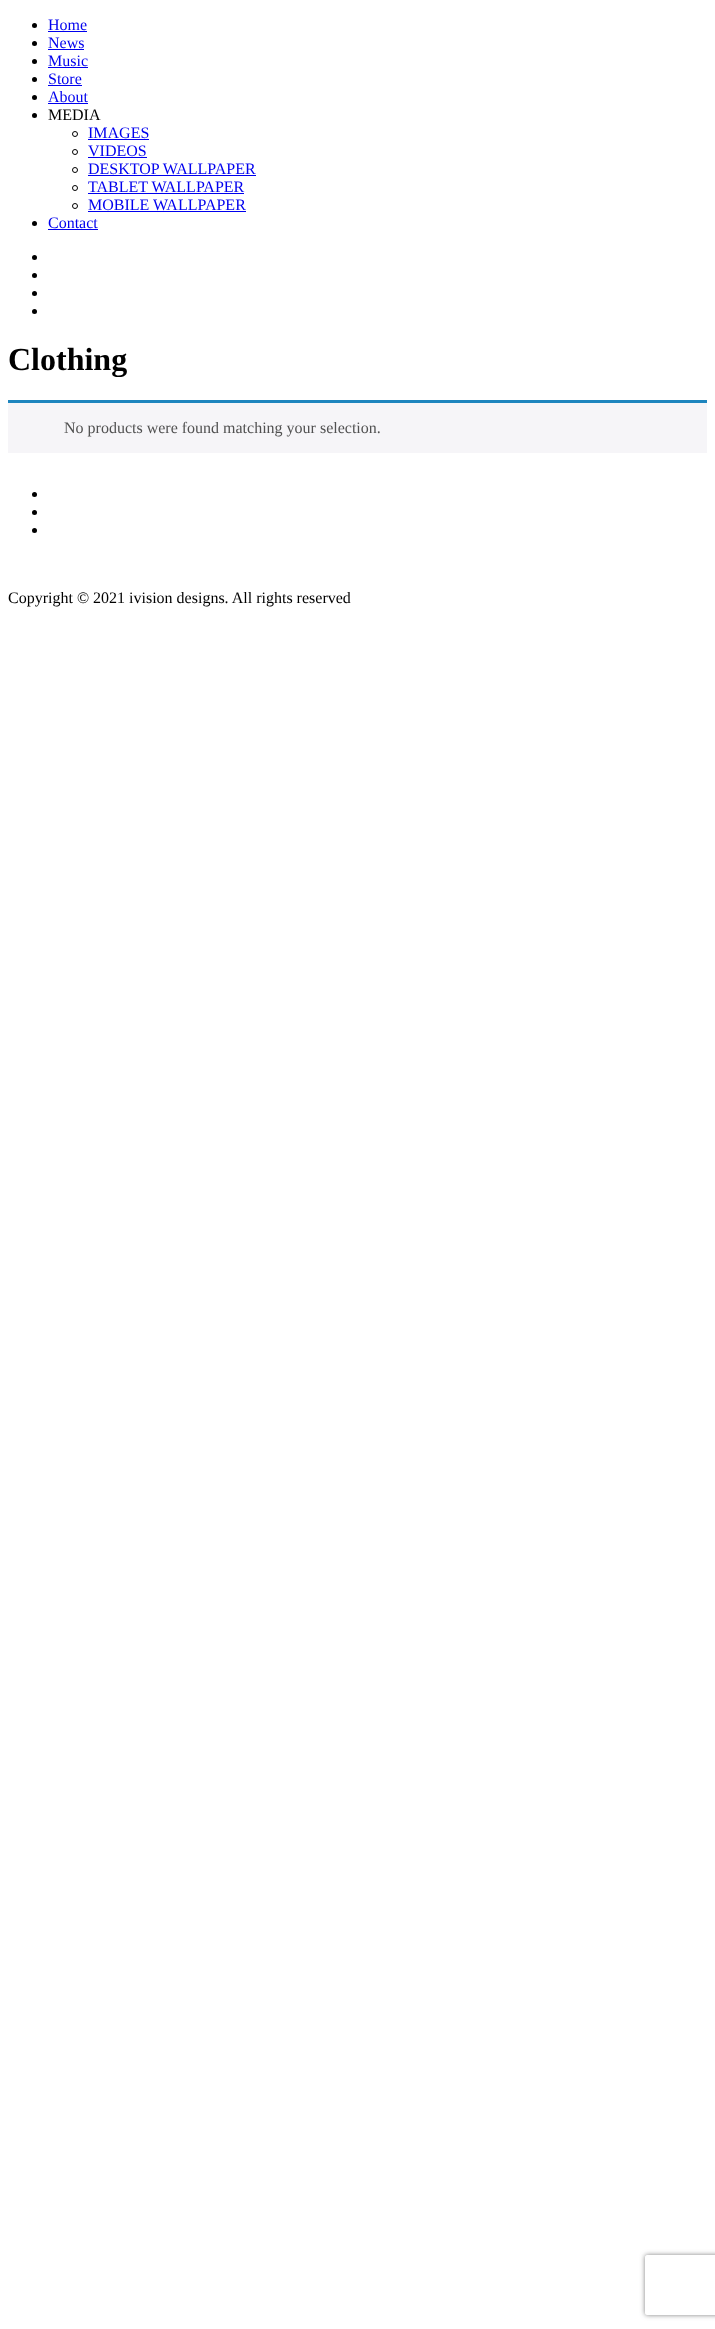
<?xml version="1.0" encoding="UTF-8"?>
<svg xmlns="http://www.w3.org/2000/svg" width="715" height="2329">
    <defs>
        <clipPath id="clip1"><path d="M 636 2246 H 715 V 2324 H 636 Z M 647 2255 H 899 C 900 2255 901 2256 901 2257 V 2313 C 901 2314 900 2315 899 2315 H 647 C 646 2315 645 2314 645 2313 V 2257 C 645 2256 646 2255 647 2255 Z" clip-rule="evenodd"/></clipPath>
        <filter id="blur1" x="-50%" y="-200%" width="200%" height="500%"><feGaussianBlur stdDeviation="2.5"/></filter>
    </defs>
    <rect width="100%" height="100%" fill="#FFFFFF"/>
    <circle cx="34.5" cy="25.5" r="2.5" fill="#000000"/>
    <text x="48" y="30" font-family="Liberation Serif" font-size="16" fill="#0000EE">Home</text>
    <rect x="48" y="31" width="39" height="1" fill="#0000EE"/>
    <circle cx="34.5" cy="43.5" r="2.5" fill="#000000"/>
    <text x="48" y="48" font-family="Liberation Serif" font-size="16" fill="#0000EE">News</text>
    <rect x="48" y="49" width="36" height="1" fill="#0000EE"/>
    <circle cx="34.5" cy="61.5" r="2.5" fill="#000000"/>
    <text x="48" y="66" font-family="Liberation Serif" font-size="16" fill="#0000EE">Music</text>
    <rect x="48" y="67" width="40" height="1" fill="#0000EE"/>
    <circle cx="34.5" cy="79.5" r="2.5" fill="#000000"/>
    <text x="48" y="84" font-family="Liberation Serif" font-size="16" fill="#0000EE">Store</text>
    <rect x="48" y="85" width="34" height="1" fill="#0000EE"/>
    <circle cx="34.5" cy="97.5" r="2.5" fill="#000000"/>
    <text x="48" y="102" font-family="Liberation Serif" font-size="16" fill="#0000EE">About</text>
    <rect x="48" y="103" width="40" height="1" fill="#0000EE"/>
    <circle cx="34.5" cy="115.5" r="2.5" fill="#000000"/>
    <text x="48" y="120" font-family="Liberation Serif" font-size="16" fill="#000000">MEDIA</text>
    <circle cx="75" cy="134" r="2.5" fill="none" stroke="#000000"/>
    <text x="88" y="138" font-family="Liberation Serif" font-size="16" fill="#0000EE">IMAGES</text>
    <rect x="88" y="139" width="61" height="1" fill="#0000EE"/>
    <circle cx="75" cy="152" r="2.5" fill="none" stroke="#000000"/>
    <text x="88" y="156" font-family="Liberation Serif" font-size="16" fill="#0000EE">VIDEOS</text>
    <rect x="88" y="157" width="59" height="1" fill="#0000EE"/>
    <circle cx="75" cy="170" r="2.5" fill="none" stroke="#000000"/>
    <text x="88" y="174" font-family="Liberation Serif" font-size="16" fill="#0000EE">DESKTOP WALLPAPER</text>
    <rect x="88" y="175" width="168" height="1" fill="#0000EE"/>
    <circle cx="75" cy="188" r="2.5" fill="none" stroke="#000000"/>
    <text x="88" y="192" font-family="Liberation Serif" font-size="16" fill="#0000EE">TABLET WALLPAPER</text>
    <rect x="88" y="193" width="156" height="1" fill="#0000EE"/>
    <circle cx="75" cy="206" r="2.5" fill="none" stroke="#000000"/>
    <text x="88" y="210" font-family="Liberation Serif" font-size="16" fill="#0000EE">MOBILE WALLPAPER</text>
    <rect x="88" y="211" width="158" height="1" fill="#0000EE"/>
    <circle cx="34.5" cy="223.5" r="2.5" fill="#000000"/>
    <text x="48" y="228" font-family="Liberation Serif" font-size="16" fill="#0000EE">Contact</text>
    <rect x="48" y="229" width="50" height="1" fill="#0000EE"/>
    <circle cx="34.5" cy="257.5" r="2.5" fill="#000000"/>
    <circle cx="34.5" cy="275.5" r="2.5" fill="#000000"/>
    <circle cx="34.5" cy="293.5" r="2.5" fill="#000000"/>
    <circle cx="34.5" cy="311.5" r="2.5" fill="#000000"/>
    <text x="8" y="370" font-family="Liberation Serif" font-size="32" font-weight="700" fill="#000000">Clothing</text>
    <rect x="8" y="403" width="699" height="50" fill="#F6F5F8"/>
    <rect x="8" y="400" width="699" height="3" fill="#1E85BE"/>
    <text x="64" y="433" font-family="Liberation Serif" font-size="16" fill="#515151">No products were found matching your selection.</text>
    <circle cx="34.5" cy="494.5" r="2.5" fill="#000000"/>
    <circle cx="34.5" cy="512.5" r="2.5" fill="#000000"/>
    <circle cx="34.5" cy="530.5" r="2.5" fill="#000000"/>
    <text x="8" y="603" font-family="Liberation Serif" font-size="16" fill="#000000">Copyright © 2021 ivision designs. All rights reserved</text>
    <g clip-path="url(#clip1)">
        <rect x="645" y="2255" width="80" height="60" rx="2" fill="#808080" filter="url(#blur1)"/>
    </g>
</svg>
